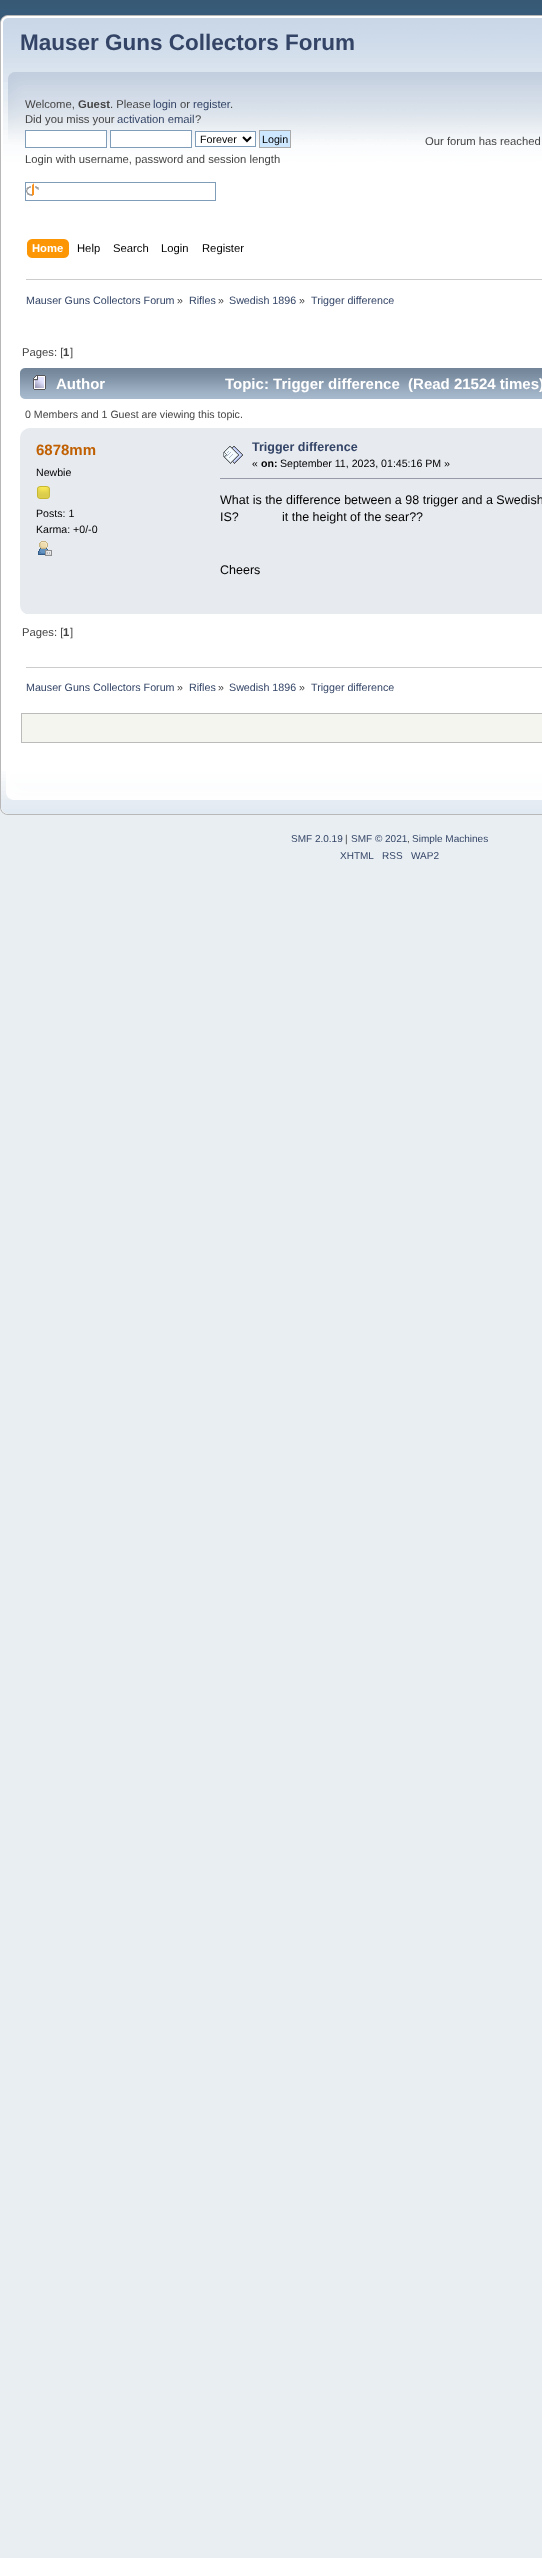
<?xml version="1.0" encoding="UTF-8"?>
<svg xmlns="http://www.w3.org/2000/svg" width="542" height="2558">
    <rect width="100%" height="100%" fill="#E9EEF2"/>
    <image x="0" y="0" width="542" height="15" href="img_01.png"/>
    <image x="0" y="15" width="542" height="258" href="img_02.png"/>
    <text x="20" y="50" font-family="Liberation Sans" font-size="22.5" font-weight="700" fill="#334466">Mauser Guns Collectors Forum</text>
    <text x="25" y="108" font-family="Liberation Sans" font-size="11.25" fill="#444444">Welcome,</text>
    <text x="78" y="108" font-family="Liberation Sans" font-size="11.25" font-weight="700" fill="#444444">Guest</text>
    <text x="110" y="108" font-family="Liberation Sans" font-size="11.25" fill="#444444">. Please</text>
    <text x="153" y="108" font-family="Liberation Sans" font-size="11.25" fill="#334466">login</text>
    <text x="180" y="108" font-family="Liberation Sans" font-size="11.25" fill="#444444">or</text>
    <text x="193" y="108" font-family="Liberation Sans" font-size="11.25" fill="#334466">register</text>
    <text x="230" y="108" font-family="Liberation Sans" font-size="11.25" fill="#444444">.</text>
    <text x="25" y="123" font-family="Liberation Sans" font-size="11.25" fill="#444444">Did you miss your</text>
    <text x="117" y="123" font-family="Liberation Sans" font-size="11.25" fill="#334466">activation email</text>
    <text x="195" y="123" font-family="Liberation Sans" font-size="11.25" fill="#444444">?</text>
    <rect x="25.5" y="130.5" width="81" height="17" fill="#FFFFFF" stroke="#7F9DB9"/>
    <rect x="110.5" y="130.5" width="81" height="17" fill="#FFFFFF" stroke="#7F9DB9"/>
    <rect x="195.5" y="131.5" width="60" height="15" fill="#FFFFFF" stroke="#7F9DB9"/>
    <path d="M 243 137 L 247 141 L 251 137" fill="none" stroke="#000000" stroke-width="2"/>
    <text x="200" y="143" font-family="Liberation Sans" font-size="10.7" fill="#000000">Forever</text>
    <rect x="259.5" y="130.5" width="31" height="17" fill="#CDE7FF" stroke="#AAAAAA"/>
    <text x="262" y="143" font-family="Liberation Sans" font-size="10.7" fill="#000000">Login</text>
    <text x="25" y="163" font-family="Liberation Sans" font-size="11.25" fill="#444444">Login with username, password and session length</text>
    <image x="26" y="183" width="13" height="13" href="img_03.png"/>
    <rect x="25.5" y="182.5" width="190" height="18" fill="none" stroke="#7F9DB9"/>
    <text x="425" y="145" font-family="Liberation Sans" font-size="11.25" fill="#444444">Our forum has reached</text>
    <image x="32" y="239" width="37" height="19" href="img_04.png"/>
    <image x="27" y="239" width="5" height="19" href="img_05.png"/>
    <text x="32" y="252" font-family="Liberation Sans" font-size="11.25" font-weight="700" fill="#FFFFFF">Home</text>
    <text x="77" y="252" font-family="Liberation Sans" font-size="11.25" fill="#000000">Help</text>
    <text x="113" y="252" font-family="Liberation Sans" font-size="11.25" fill="#000000">Search</text>
    <text x="161" y="252" font-family="Liberation Sans" font-size="11.25" fill="#000000">Login</text>
    <text x="202" y="252" font-family="Liberation Sans" font-size="11.25" fill="#000000">Register</text>
    <rect x="1" y="273" width="541" height="498" fill="#FFFFFF"/>
    <rect x="0" y="273" width="1" height="498" fill="#B7B7B7"/>
    <rect x="26" y="279" width="516" height="1" fill="#CCCCCC"/>
    <text x="26" y="304" font-family="Liberation Sans" font-size="10.7" fill="#334466">Mauser Guns Collectors Forum</text>
    <text x="177" y="304" font-family="Liberation Sans" font-size="10.7" fill="#444444">»</text>
    <text x="189" y="304" font-family="Liberation Sans" font-size="10.7" fill="#334466">Rifles</text>
    <text x="218" y="304" font-family="Liberation Sans" font-size="10.7" fill="#444444">»</text>
    <text x="229" y="304" font-family="Liberation Sans" font-size="10.7" fill="#334466">Swedish 1896</text>
    <text x="299" y="304" font-family="Liberation Sans" font-size="10.7" fill="#444444">»</text>
    <text x="311" y="304" font-family="Liberation Sans" font-size="10.7" fill="#334466">Trigger difference</text>
    <text x="22" y="356" font-family="Liberation Sans" font-size="11.25" fill="#444444">Pages: [</text>
    <text x="63" y="356" font-family="Liberation Sans" font-size="11.25" font-weight="700" fill="#444444">1</text>
    <text x="70" y="356" font-family="Liberation Sans" font-size="11.25" fill="#444444">]</text>
    <image x="20" y="368" width="522" height="31" href="img_06.png"/>
    <image x="33" y="375" width="13" height="15" href="img_07.png"/>
    <text x="56" y="389" font-family="Liberation Sans" font-size="15" font-weight="700" fill="#FFFFFF">Author</text>
    <text x="225" y="389" font-family="Liberation Sans" font-size="15" font-weight="700" fill="#FFFFFF" xml:space="preserve">Topic: Trigger difference  (Read 21524 times)</text>
    <text x="25" y="418" font-family="Liberation Sans" font-size="10.6" fill="#444444">0 Members and 1 Guest are viewing this topic.</text>
    <rect x="20" y="428" width="522" height="186" fill="#E7EAEF"/>
    <image x="20" y="428" width="9" height="9" href="img_08.png"/>
    <text x="36" y="455" font-family="Liberation Sans" font-size="15" font-weight="700" fill="#C06002">6878mm</text>
    <text x="36" y="476" font-family="Liberation Sans" font-size="10.6" fill="#000000">Newbie</text>
    <image x="37" y="486" width="13" height="13" href="img_09.png"/>
    <text font-family="Liberation Sans" font-size="10.6" fill="#000000">
        <tspan x="36" y="517">Posts: 1</tspan>
        <tspan x="36" y="533">Karma: +0/-0</tspan>
    </text>
    <image x="38" y="541" width="14" height="15" href="img_10.png"/>
    <image x="223" y="446" width="20" height="18" href="img_11.png"/>
    <text x="252" y="451" font-family="Liberation Sans" font-size="12.5" font-weight="700" fill="#334466">Trigger difference</text>
    <text x="252" y="467" font-family="Liberation Sans" font-size="10.6" fill="#000000">«</text>
    <text x="261" y="467" font-family="Liberation Sans" font-size="10.6" font-weight="700" fill="#000000">on:</text>
    <text x="280" y="467" font-family="Liberation Sans" font-size="10.6" fill="#000000">September 11, 2023, 01:45:16 PM »</text>
    <rect x="220" y="478" width="322" height="1" fill="#9999AA"/>
    <text font-family="Liberation Sans" font-size="12.5" fill="#000000">
        <tspan x="220" y="504">What is the difference between a 98 trigger and a Swedish</tspan>
        <tspan x="220" y="521">IS?</tspan>
    </text>
    <text x="282" y="521" font-family="Liberation Sans" font-size="12.5" fill="#000000">it the height of the sear??</text>
    <text x="220" y="574" font-family="Liberation Sans" font-size="12.5" fill="#000000">Cheers</text>
    <image x="20" y="606" width="6" height="8" href="img_12.png"/>
    <text x="22" y="636" font-family="Liberation Sans" font-size="11.25" fill="#444444">Pages: [</text>
    <text x="63" y="636" font-family="Liberation Sans" font-size="11.25" font-weight="700" fill="#444444">1</text>
    <text x="70" y="636" font-family="Liberation Sans" font-size="11.25" fill="#444444">]</text>
    <rect x="26" y="667" width="516" height="1" fill="#CCCCCC"/>
    <text x="26" y="691" font-family="Liberation Sans" font-size="10.7" fill="#334466">Mauser Guns Collectors Forum</text>
    <text x="177" y="691" font-family="Liberation Sans" font-size="10.7" fill="#444444">»</text>
    <text x="189" y="691" font-family="Liberation Sans" font-size="10.7" fill="#334466">Rifles</text>
    <text x="218" y="691" font-family="Liberation Sans" font-size="10.7" fill="#444444">»</text>
    <text x="229" y="691" font-family="Liberation Sans" font-size="10.7" fill="#334466">Swedish 1896</text>
    <text x="299" y="691" font-family="Liberation Sans" font-size="10.7" fill="#444444">»</text>
    <text x="311" y="691" font-family="Liberation Sans" font-size="10.7" fill="#334466">Trigger difference</text>
    <rect x="21.5" y="713.5" width="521" height="29" fill="#F5F5F0" stroke="#BBBBBB"/>
    <image x="0" y="771" width="542" height="44" href="img_13.png"/>
    <text x="291" y="842" font-family="Liberation Sans" font-size="10" fill="#334466">SMF 2.0.19</text>
    <text x="345" y="842" font-family="Liberation Sans" font-size="10" fill="#444444">|</text>
    <text x="351" y="842" font-family="Liberation Sans" font-size="10" fill="#334466">SMF © 2021</text>
    <text x="407" y="842" font-family="Liberation Sans" font-size="10" fill="#444444">,</text>
    <text x="412" y="842" font-family="Liberation Sans" font-size="10" fill="#334466">Simple Machines</text>
    <text x="340" y="859" font-family="Liberation Sans" font-size="10" fill="#334466">XHTML</text>
    <text x="382" y="859" font-family="Liberation Sans" font-size="10" fill="#334466">RSS</text>
    <text x="411" y="859" font-family="Liberation Sans" font-size="10" fill="#334466">WAP2</text>
</svg>
